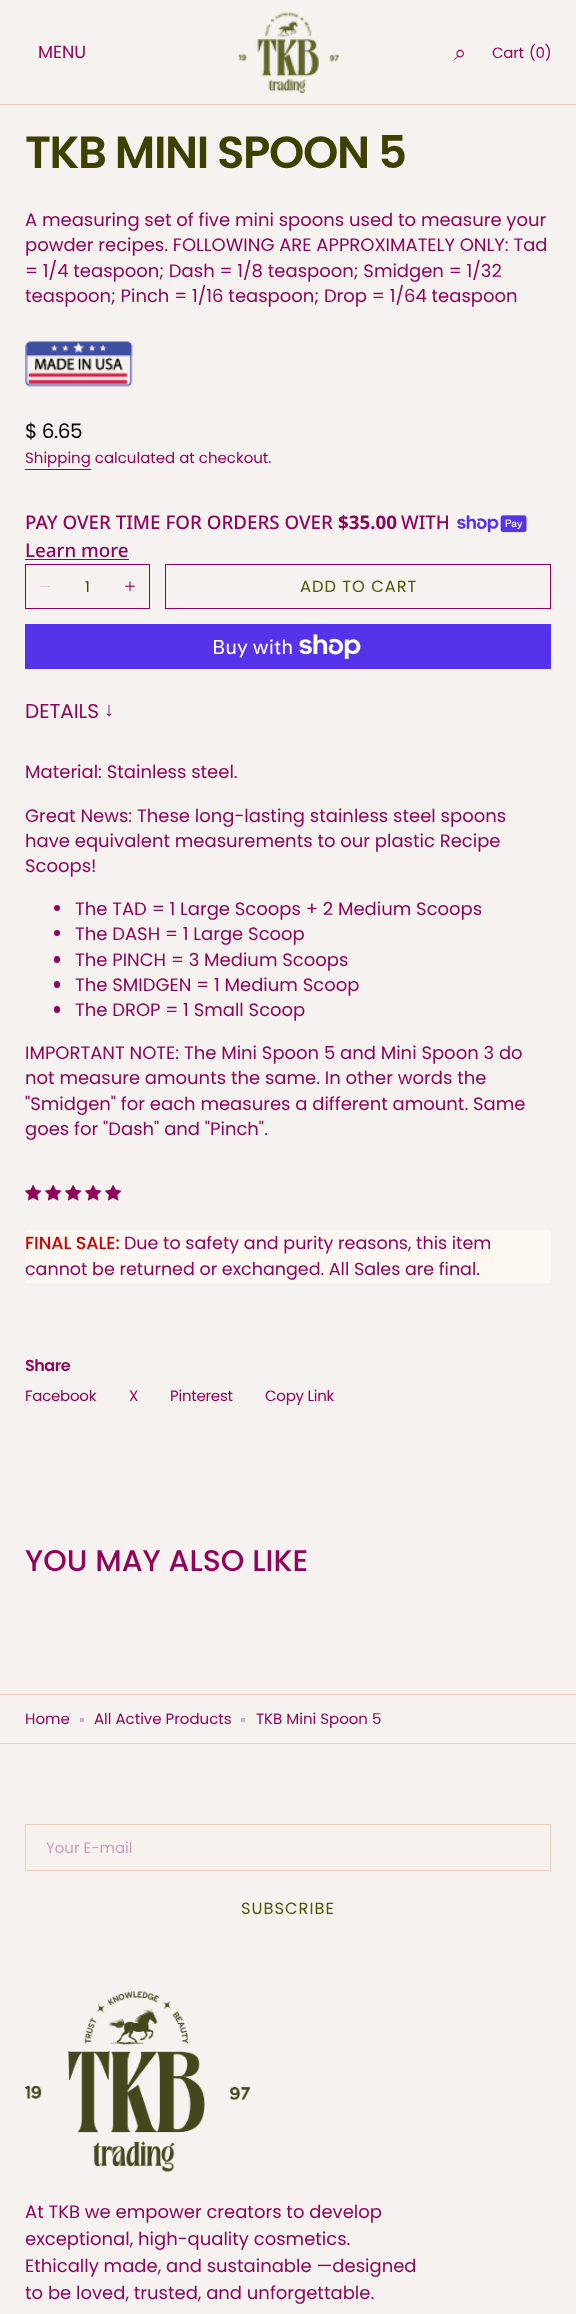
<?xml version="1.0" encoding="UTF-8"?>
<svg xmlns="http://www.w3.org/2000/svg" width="576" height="2314">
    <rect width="100%" height="100%" fill="#F5F2EF"/>
    <text x="38" y="58" font-family="Poppins" font-size="17.5" fill="#90045A">MENU</text>
    <image x="238" y="12" width="101" height="81" href="img_01.png"/>
    <text x="454" y="60" font-family="FreeSerif" font-size="22" letter-spacing="-0.25" fill="#90045A">⌕</text>
    <text x="492" y="58" font-family="Poppins" font-size="15" letter-spacing="-0.25" fill="#90045A">Cart</text>
    <text x="529" y="58" font-family="Poppins" font-size="15" letter-spacing="-0.25" fill="#90045A">(0)</text>
    <rect x="0" y="104" width="576" height="1" fill="#EECDBE"/>
    <text x="25" y="168" font-family="Poppins" font-size="45" font-weight="600" letter-spacing="-1.4" fill="#3E4000">TKB MINI SPOON 5</text>
    <text font-family="Poppins" font-size="18" fill="#90045A">
        <tspan x="25" y="226">A measuring set of five mini spoons used to measure your</tspan>
        <tspan x="25" y="251">powder recipes. FOLLOWING ARE APPROXIMATELY ONLY: Tad</tspan>
        <tspan x="25" y="277">= 1/4 teaspoon; Dash = 1/8 teaspoon; Smidgen = 1/32</tspan>
        <tspan x="25" y="302">teaspoon; Pinch = 1/16 teaspoon; Drop = 1/64 teaspoon</tspan>
    </text>
    <image x="25" y="341" width="108" height="46" href="img_02.png"/>
    <text x="25" y="438" font-family="Poppins" font-size="20" letter-spacing="-0.5" fill="#000000">$ 6.65</text>
    <text x="25" y="463" font-family="Poppins" font-size="15" fill="#90045A">Shipping calculated at checkout.</text>
    <rect x="25" y="469" width="66" height="1" fill="#90045A"/>
    <text x="25" y="529" font-family="Noto Sans" font-size="18.75" font-weight="500" fill="#90045A">PAY OVER TIME FOR ORDERS OVER</text>
    <text x="338" y="529" font-family="Noto Sans" font-size="18.75" font-weight="700" fill="#90045A">$35.00</text>
    <text x="401" y="529" font-family="Noto Sans" font-size="18.75" font-weight="500" fill="#90045A">WITH</text>
    <image x="457" y="515" width="70" height="18" href="img_03.png"/>
    <text x="25" y="557" font-family="Noto Sans" font-size="18.75" font-weight="500" fill="#90045A">Learn more</text>
    <rect x="25" y="559" width="104" height="1" fill="#90045A"/>
    <rect x="25.5" y="564.5" width="124" height="44" fill="none" stroke="#90045A"/>
    <path d="M 49.5 586.5 H 40.5" fill="none" stroke="#E3C7D4" stroke-width="1.1" stroke-linecap="round"/>
    <text x="85" y="592" font-family="Poppins" font-size="15" fill="#3E4000">1</text>
    <image x="125" y="581" width="10" height="11" href="img_04.png"/>
    <rect x="165.5" y="564.5" width="385" height="44" fill="none" stroke="#90045A"/>
    <text x="300" y="592" font-family="Poppins" font-size="16.25" letter-spacing="1" fill="#525606">ADD TO CART</text>
    <rect x="25" y="624" width="526" height="45" fill="#5433EB"/>
    <text x="212" y="654" font-family="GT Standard" font-size="20" fill="#FFFFFF">Buy with</text>
    <image x="299" y="634" width="62" height="25" href="img_05.png"/>
    <text x="25" y="718" font-family="Poppins" font-size="20" fill="#90045A">DETAILS</text>
    <text x="104" y="716" font-family="Liberation Sans" font-size="20" font-weight="700" fill="#90045A">↓</text>
    <text x="25" y="778" font-family="Poppins" font-size="18" fill="#90045A">Material: Stainless steel.</text>
    <text font-family="Poppins" font-size="18" fill="#90045A">
        <tspan x="25" y="822">Great News: These long-lasting stainless steel spoons</tspan>
        <tspan x="25" y="847">have equivalent measurements to our plastic Recipe</tspan>
        <tspan x="25" y="872">Scoops!</tspan>
    </text>
    <circle cx="57" cy="908" r="3" fill="#90045A"/>
    <text x="75" y="915" font-family="Poppins" font-size="18" fill="#90045A">The TAD = 1 Large Scoops + 2 Medium Scoops</text>
    <circle cx="57" cy="933" r="3" fill="#90045A"/>
    <text x="75" y="940" font-family="Poppins" font-size="18" fill="#90045A">The DASH = 1 Large Scoop</text>
    <rect x="54" y="956" width="6" height="7" rx="3" fill="#90045A"/>
    <text x="75" y="966" font-family="Poppins" font-size="18" fill="#90045A">The PINCH = 3 Medium Scoops</text>
    <rect x="54" y="981" width="6" height="7" rx="3" fill="#90045A"/>
    <text x="75" y="991" font-family="Poppins" font-size="18" fill="#90045A">The SMIDGEN = 1 Medium Scoop</text>
    <rect x="54" y="1006" width="6" height="7" rx="3" fill="#90045A"/>
    <text x="75" y="1016" font-family="Poppins" font-size="18" fill="#90045A">The DROP = 1 Small Scoop</text>
    <text font-family="Poppins" font-size="18" fill="#90045A">
        <tspan x="25" y="1059">IMPORTANT NOTE: The Mini Spoon 5 and Mini Spoon 3 do</tspan>
        <tspan x="25" y="1084">not measure amounts the same. In other words the</tspan>
        <tspan x="25" y="1110">"Smidgen" for each measures a different amount. Same</tspan>
        <tspan x="25" y="1135">goes for "Dash" and "Pinch".</tspan>
    </text>
    <image x="25" y="1185" width="17" height="16" href="img_06.png"/>
    <image x="45" y="1185" width="17" height="16" href="img_06.png"/>
    <image x="65" y="1185" width="17" height="16" href="img_06.png"/>
    <image x="85" y="1185" width="17" height="16" href="img_06.png"/>
    <image x="105" y="1185" width="17" height="16" href="img_06.png"/>
    <rect x="25" y="1230" width="526" height="53" fill="#FFF7F1"/>
    <text x="25" y="1249" font-family="Poppins" font-size="17.5" font-weight="500" fill="#CC0000">FINAL SALE:</text>
    <text x="124" y="1249" font-family="Poppins" font-size="17.5" fill="#90045A">Due to safety and purity reasons, this item</text>
    <text x="25" y="1275" font-family="Poppins" font-size="17.5" fill="#90045A">cannot be returned or exchanged. All Sales are final.</text>
    <text x="25" y="1371" font-family="Poppins" font-size="16" font-weight="600" letter-spacing="-0.5" fill="#90045A">Share</text>
    <text x="25" y="1401" font-family="Poppins" font-size="15" letter-spacing="-0.25" fill="#90045A">Facebook</text>
    <text x="129" y="1401" font-family="Poppins" font-size="15" letter-spacing="-0.25" fill="#90045A">X</text>
    <text x="170" y="1401" font-family="Poppins" font-size="15" letter-spacing="-0.25" fill="#90045A">Pinterest</text>
    <text x="265" y="1401" font-family="Poppins" font-size="15" letter-spacing="-0.25" fill="#90045A">Copy Link</text>
    <text x="25" y="1571" font-family="Poppins" font-size="30" font-weight="500" fill="#90045A">YOU MAY ALSO LIKE</text>
    <rect x="0" y="1694" width="576" height="1" fill="#EECDBE"/>
    <text x="25" y="1724" font-family="Poppins" font-size="15" fill="#90045A">Home</text>
    <rect x="80" y="1718" width="4" height="4" fill="#D7ABC2"/>
    <text x="94" y="1724" font-family="Poppins" font-size="15" fill="#90045A">All Active Products</text>
    <rect x="241" y="1718" width="4" height="4" fill="#D7ABC2"/>
    <text x="256" y="1724" font-family="Poppins" font-size="15" fill="#90045A">TKB Mini Spoon 5</text>
    <rect x="0" y="1743" width="576" height="1" fill="#EECDBE"/>
    <rect x="25.5" y="1824.5" width="525" height="46" fill="none" stroke="#EECDBE"/>
    <text x="46" y="1853" font-family="Poppins" font-size="15" fill="#D09CBA">Your E-mail</text>
    <text x="241" y="1914" font-family="Poppins" font-size="16.25" letter-spacing="1" fill="#525606">SUBSCRIBE</text>
    <image x="25" y="1991" width="225" height="181" href="img_07.png"/>
    <text font-family="Poppins" font-size="18" fill="#90045A">
        <tspan x="25" y="2218">At TKB we empower creators to develop</tspan>
        <tspan x="25" y="2245">exceptional, high-quality cosmetics.</tspan>
        <tspan x="25" y="2272">Ethically made, and sustainable —designed</tspan>
        <tspan x="25" y="2299">to be loved, trusted, and unforgettable.</tspan>
    </text>
</svg>
